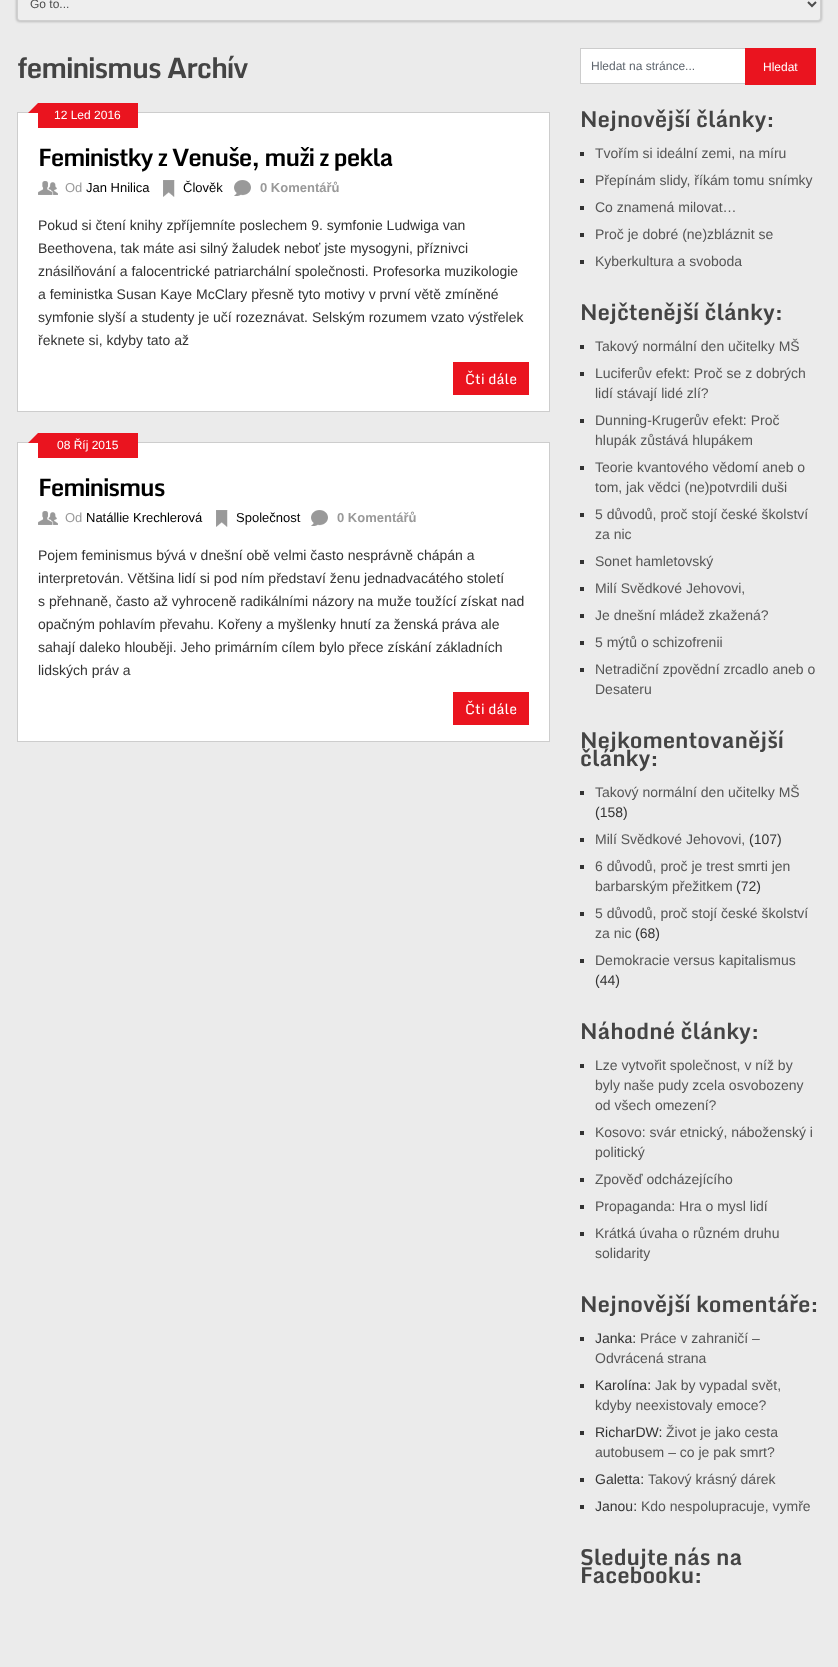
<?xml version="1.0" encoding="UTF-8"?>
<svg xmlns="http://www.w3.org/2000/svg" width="838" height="1667">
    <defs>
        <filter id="blur1" x="-50%" y="-200%" width="200%" height="500%"><feGaussianBlur stdDeviation="1"/></filter>
    </defs>
    <rect width="100%" height="100%" fill="#EBEBEB"/>
    <rect x="16" y="-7" width="806" height="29" rx="4" fill="#000000" fill-opacity="0.2" filter="url(#blur1)"/>
    <rect x="17.5" y="-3.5" width="803" height="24" rx="2.5" fill="#EEEEEE" stroke="#CFCFCF"/>
    <path d="M 808 2 L 812 6 L 816 2" fill="none" stroke="#4D4D4D" stroke-width="2"/>
    <text x="30" y="8" font-family="Liberation Sans" font-size="12" fill="#4D4D4D">Go to...</text>
    <text x="17" y="78" font-family="Monda" font-size="28" font-weight="700" letter-spacing="-1" fill="#444444">feminismus Archív</text>
    <rect x="17.5" y="112.5" width="532" height="299" fill="#FFFFFF" stroke="#CDCDCD"/>
    <rect x="38" y="103" width="100" height="25" fill="#EA141F"/>
    <path d="M 38 113 H 28 L 38 103 Z" fill="#EA141F"/>
    <text x="54" y="119" font-family="Liberation Sans" font-size="12" fill="#FFFFFF">12 Led 2016</text>
    <text x="38" y="166" font-family="Monda" font-size="24" font-weight="700" letter-spacing="-1" fill="#000000">Feministky z Venuše, muži z pekla</text>
    <image x="38" y="181" width="20" height="14" href="img_01.png"/>
    <text x="65" y="192" font-family="Liberation Sans" font-size="13" fill="#999999">Od</text>
    <text x="86" y="192" font-family="Liberation Sans" font-size="13" fill="#000000">Jan Hnilica</text>
    <image x="163" y="180" width="12" height="17" href="img_02.png"/>
    <text x="183" y="192" font-family="Liberation Sans" font-size="13" fill="#000000">Člověk</text>
    <image x="234" y="180" width="17" height="16" href="img_03.png"/>
    <text x="260" y="192" font-family="Liberation Sans" font-size="13" font-weight="700" fill="#999999">0 Komentářů</text>
    <text font-family="Liberation Sans" font-size="14" fill="#333333">
        <tspan x="38" y="230">Pokud si čtení knihy zpříjemníte poslechem 9. symfonie Ludwiga van</tspan>
        <tspan x="38" y="253">Beethovena, tak máte asi silný žaludek neboť jste mysogyni, příznivci</tspan>
        <tspan x="38" y="276">znásilňování a falocentrické patriarchální společnosti. Profesorka muzikologie</tspan>
        <tspan x="38" y="299">a feministka Susan Kaye McClary přesně tyto motivy v první větě zmíněné</tspan>
        <tspan x="38" y="322">symfonie slyší a studenty je učí rozeznávat. Selským rozumem vzato výstřelek</tspan>
        <tspan x="38" y="345">řeknete si, kdyby tato až</tspan>
    </text>
    <rect x="453" y="362" width="76" height="33" fill="#EA141F"/>
    <text x="465" y="384" font-family="Monda" font-size="14" fill="#FFFFFF">Čti dále</text>
    <rect x="17.5" y="442.5" width="532" height="299" fill="#FFFFFF" stroke="#CDCDCD"/>
    <rect x="38" y="433" width="100" height="25" fill="#EA141F"/>
    <path d="M 38 443 H 28 L 38 433 Z" fill="#EA141F"/>
    <text x="57" y="449" font-family="Liberation Sans" font-size="12" fill="#FFFFFF">08 Říj 2015</text>
    <text x="38" y="496" font-family="Monda" font-size="24" font-weight="700" letter-spacing="-1" fill="#000000">Feminismus</text>
    <image x="38" y="511" width="20" height="14" href="img_01.png"/>
    <text x="65" y="522" font-family="Liberation Sans" font-size="13" fill="#999999">Od</text>
    <text x="86" y="522" font-family="Liberation Sans" font-size="13" fill="#000000">Natállie Krechlerová</text>
    <image x="216" y="510" width="12" height="17" href="img_02.png"/>
    <text x="236" y="522" font-family="Liberation Sans" font-size="13" fill="#000000">Společnost</text>
    <image x="311" y="510" width="17" height="16" href="img_03.png"/>
    <text x="337" y="522" font-family="Liberation Sans" font-size="13" font-weight="700" fill="#999999">0 Komentářů</text>
    <text font-family="Liberation Sans" font-size="14" fill="#333333">
        <tspan x="38" y="560">Pojem feminismus bývá v dnešní obě velmi často nesprávně chápán a</tspan>
        <tspan x="38" y="583">interpretován. Většina lidí si pod ním představí ženu jednadvacátého století</tspan>
        <tspan x="38" y="606">s přehnaně, často až vyhroceně radikálními názory na muže toužící získat nad</tspan>
        <tspan x="38" y="629">opačným pohlavím převahu. Kořeny a myšlenky hnutí za ženská práva ale</tspan>
        <tspan x="38" y="652">sahají daleko hlouběji. Jeho primárním cílem bylo přece získání základních</tspan>
        <tspan x="38" y="675">lidských práv a</tspan>
    </text>
    <rect x="453" y="692" width="76" height="33" fill="#EA141F"/>
    <text x="465" y="714" font-family="Monda" font-size="14" fill="#FFFFFF">Čti dále</text>
    <rect x="581" y="49" width="164" height="34" fill="#FFFFFF"/>
    <rect x="580" y="48" width="165" height="1" fill="#CCCCCC"/>
    <rect x="580" y="83" width="165" height="1" fill="#CCCCCC"/>
    <rect x="580" y="48" width="1" height="36" fill="#CCCCCC"/>
    <text x="591" y="70" font-family="Liberation Sans" font-size="12" fill="#5E656D">Hledat na stránce...</text>
    <rect x="745" y="48" width="71" height="37" fill="#EA141F"/>
    <text x="763" y="71" font-family="Liberation Sans" font-size="12" fill="#FFFFFF">Hledat</text>
    <text x="580" y="127" font-family="Monda" font-size="22" font-weight="700" fill="#444444">Nejnovější články:</text>
    <rect x="580" y="152" width="4" height="4" fill="#333333"/>
    <text x="595" y="158" font-family="Liberation Sans" font-size="14" fill="#555555">Tvořím si ideální zemi, na míru</text>
    <rect x="580" y="179" width="4" height="4" fill="#333333"/>
    <text x="595" y="185" font-family="Liberation Sans" font-size="14" fill="#555555">Přepínám slidy, říkám tomu snímky</text>
    <rect x="580" y="206" width="4" height="4" fill="#333333"/>
    <text x="595" y="212" font-family="Liberation Sans" font-size="14" fill="#555555">Co znamená milovat…</text>
    <rect x="580" y="233" width="4" height="4" fill="#333333"/>
    <text x="595" y="239" font-family="Liberation Sans" font-size="14" fill="#555555">Proč je dobré (ne)zbláznit se</text>
    <rect x="580" y="260" width="4" height="4" fill="#333333"/>
    <text x="595" y="266" font-family="Liberation Sans" font-size="14" fill="#555555">Kyberkultura a svoboda</text>
    <text x="580" y="320" font-family="Monda" font-size="22" font-weight="700" fill="#444444">Nejčtenější články:</text>
    <rect x="580" y="345" width="4" height="4" fill="#333333"/>
    <text x="595" y="351" font-family="Liberation Sans" font-size="14" fill="#555555">Takový normální den učitelky MŠ</text>
    <rect x="580" y="372" width="4" height="4" fill="#333333"/>
    <text font-family="Liberation Sans" font-size="14" fill="#555555">
        <tspan x="595" y="378">Luciferův efekt: Proč se z dobrých</tspan>
        <tspan x="595" y="398">lidí stávají lidé zlí?</tspan>
    </text>
    <rect x="580" y="419" width="4" height="4" fill="#333333"/>
    <text font-family="Liberation Sans" font-size="14" fill="#555555">
        <tspan x="595" y="425">Dunning-Krugerův efekt: Proč</tspan>
        <tspan x="595" y="445">hlupák zůstává hlupákem</tspan>
    </text>
    <rect x="580" y="466" width="4" height="4" fill="#333333"/>
    <text font-family="Liberation Sans" font-size="14" fill="#555555">
        <tspan x="595" y="472">Teorie kvantového vědomí aneb o</tspan>
        <tspan x="595" y="492">tom, jak vědci (ne)potvrdili duši</tspan>
    </text>
    <rect x="580" y="513" width="4" height="4" fill="#333333"/>
    <text font-family="Liberation Sans" font-size="14" fill="#555555">
        <tspan x="595" y="519">5 důvodů, proč stojí české školství</tspan>
        <tspan x="595" y="539">za nic</tspan>
    </text>
    <rect x="580" y="560" width="4" height="4" fill="#333333"/>
    <text x="595" y="566" font-family="Liberation Sans" font-size="14" fill="#555555">Sonet hamletovský</text>
    <rect x="580" y="587" width="4" height="4" fill="#333333"/>
    <text x="595" y="593" font-family="Liberation Sans" font-size="14" fill="#555555">Milí Svědkové Jehovovi,</text>
    <rect x="580" y="614" width="4" height="4" fill="#333333"/>
    <text x="595" y="620" font-family="Liberation Sans" font-size="14" fill="#555555">Je dnešní mládež zkažená?</text>
    <rect x="580" y="641" width="4" height="4" fill="#333333"/>
    <text x="595" y="647" font-family="Liberation Sans" font-size="14" fill="#555555">5 mýtů o schizofrenii</text>
    <rect x="580" y="668" width="4" height="4" fill="#333333"/>
    <text font-family="Liberation Sans" font-size="14" fill="#555555">
        <tspan x="595" y="674">Netradiční zpovědní zrcadlo aneb o</tspan>
        <tspan x="595" y="694">Desateru</tspan>
    </text>
    <text font-family="Monda" font-size="22" font-weight="700" fill="#444444">
        <tspan x="580" y="748">Nejkomentovanější</tspan>
        <tspan x="580" y="766">články:</tspan>
    </text>
    <rect x="580" y="791" width="4" height="4" fill="#333333"/>
    <text x="595" y="797" font-family="Liberation Sans" font-size="14" fill="#555555">Takový normální den učitelky MŠ</text>
    <text x="595" y="817" font-family="Liberation Sans" font-size="14" fill="#333333">(158)</text>
    <rect x="580" y="838" width="4" height="4" fill="#333333"/>
    <text x="595" y="844" font-family="Liberation Sans" font-size="14" fill="#555555">Milí Svědkové Jehovovi,</text>
    <text x="749" y="844" font-family="Liberation Sans" font-size="14" fill="#333333">(107)</text>
    <rect x="580" y="865" width="4" height="4" fill="#333333"/>
    <text font-family="Liberation Sans" font-size="14" fill="#555555">
        <tspan x="595" y="871">6 důvodů, proč je trest smrti jen</tspan>
        <tspan x="595" y="891">barbarským přežitkem</tspan>
    </text>
    <text x="736" y="891" font-family="Liberation Sans" font-size="14" fill="#333333">(72)</text>
    <rect x="580" y="912" width="4" height="4" fill="#333333"/>
    <text font-family="Liberation Sans" font-size="14" fill="#555555">
        <tspan x="595" y="918">5 důvodů, proč stojí české školství</tspan>
        <tspan x="595" y="938">za nic</tspan>
    </text>
    <text x="635" y="938" font-family="Liberation Sans" font-size="14" fill="#333333">(68)</text>
    <rect x="580" y="959" width="4" height="4" fill="#333333"/>
    <text x="595" y="965" font-family="Liberation Sans" font-size="14" fill="#555555">Demokracie versus kapitalismus</text>
    <text x="595" y="985" font-family="Liberation Sans" font-size="14" fill="#333333">(44)</text>
    <text x="580" y="1039" font-family="Monda" font-size="22" font-weight="700" fill="#444444">Náhodné články:</text>
    <rect x="580" y="1064" width="4" height="4" fill="#333333"/>
    <text font-family="Liberation Sans" font-size="14" fill="#555555">
        <tspan x="595" y="1070">Lze vytvořit společnost, v níž by</tspan>
        <tspan x="595" y="1090">byly naše pudy zcela osvobozeny</tspan>
        <tspan x="595" y="1110">od všech omezení?</tspan>
    </text>
    <rect x="580" y="1131" width="4" height="4" fill="#333333"/>
    <text font-family="Liberation Sans" font-size="14" fill="#555555">
        <tspan x="595" y="1137">Kosovo: svár etnický, náboženský i</tspan>
        <tspan x="595" y="1157">politický</tspan>
    </text>
    <rect x="580" y="1178" width="4" height="4" fill="#333333"/>
    <text x="595" y="1184" font-family="Liberation Sans" font-size="14" fill="#555555">Zpověď odcházejícího</text>
    <rect x="580" y="1205" width="4" height="4" fill="#333333"/>
    <text x="595" y="1211" font-family="Liberation Sans" font-size="14" fill="#555555">Propaganda: Hra o mysl lidí</text>
    <rect x="580" y="1232" width="4" height="4" fill="#333333"/>
    <text font-family="Liberation Sans" font-size="14" fill="#555555">
        <tspan x="595" y="1238">Krátká úvaha o různém druhu</tspan>
        <tspan x="595" y="1258">solidarity</tspan>
    </text>
    <text x="580" y="1312" font-family="Monda" font-size="22" font-weight="700" fill="#444444">Nejnovější komentáře:</text>
    <rect x="580" y="1337" width="4" height="4" fill="#333333"/>
    <text x="595" y="1343" font-family="Liberation Sans" font-size="14" fill="#333333">Janka:</text>
    <text x="640" y="1343" font-family="Liberation Sans" font-size="14" fill="#555555">Práce v zahraničí –</text>
    <text x="595" y="1363" font-family="Liberation Sans" font-size="14" fill="#555555">Odvrácená strana</text>
    <rect x="580" y="1384" width="4" height="4" fill="#333333"/>
    <text x="595" y="1390" font-family="Liberation Sans" font-size="14" fill="#333333">Karolína:</text>
    <text x="655" y="1390" font-family="Liberation Sans" font-size="14" fill="#555555">Jak by vypadal svět,</text>
    <text x="595" y="1410" font-family="Liberation Sans" font-size="14" fill="#555555">kdyby neexistovaly emoce?</text>
    <rect x="580" y="1431" width="4" height="4" fill="#333333"/>
    <text x="595" y="1437" font-family="Liberation Sans" font-size="14" fill="#333333">RicharDW:</text>
    <text x="666" y="1437" font-family="Liberation Sans" font-size="14" fill="#555555">Život je jako cesta</text>
    <text x="595" y="1457" font-family="Liberation Sans" font-size="14" fill="#555555">autobusem – co je pak smrt?</text>
    <rect x="580" y="1478" width="4" height="4" fill="#333333"/>
    <text x="595" y="1484" font-family="Liberation Sans" font-size="14" fill="#333333">Galetta:</text>
    <text x="648" y="1484" font-family="Liberation Sans" font-size="14" fill="#555555">Takový krásný dárek</text>
    <rect x="580" y="1505" width="4" height="4" fill="#333333"/>
    <text x="595" y="1511" font-family="Liberation Sans" font-size="14" fill="#333333">Janou:</text>
    <text x="641" y="1511" font-family="Liberation Sans" font-size="14" fill="#555555">Kdo nespolupracuje, vymře</text>
    <text font-family="Monda" font-size="22" font-weight="700" fill="#444444">
        <tspan x="580" y="1565">Sledujte nás na</tspan>
        <tspan x="580" y="1583">Facebooku:</tspan>
    </text>
</svg>
